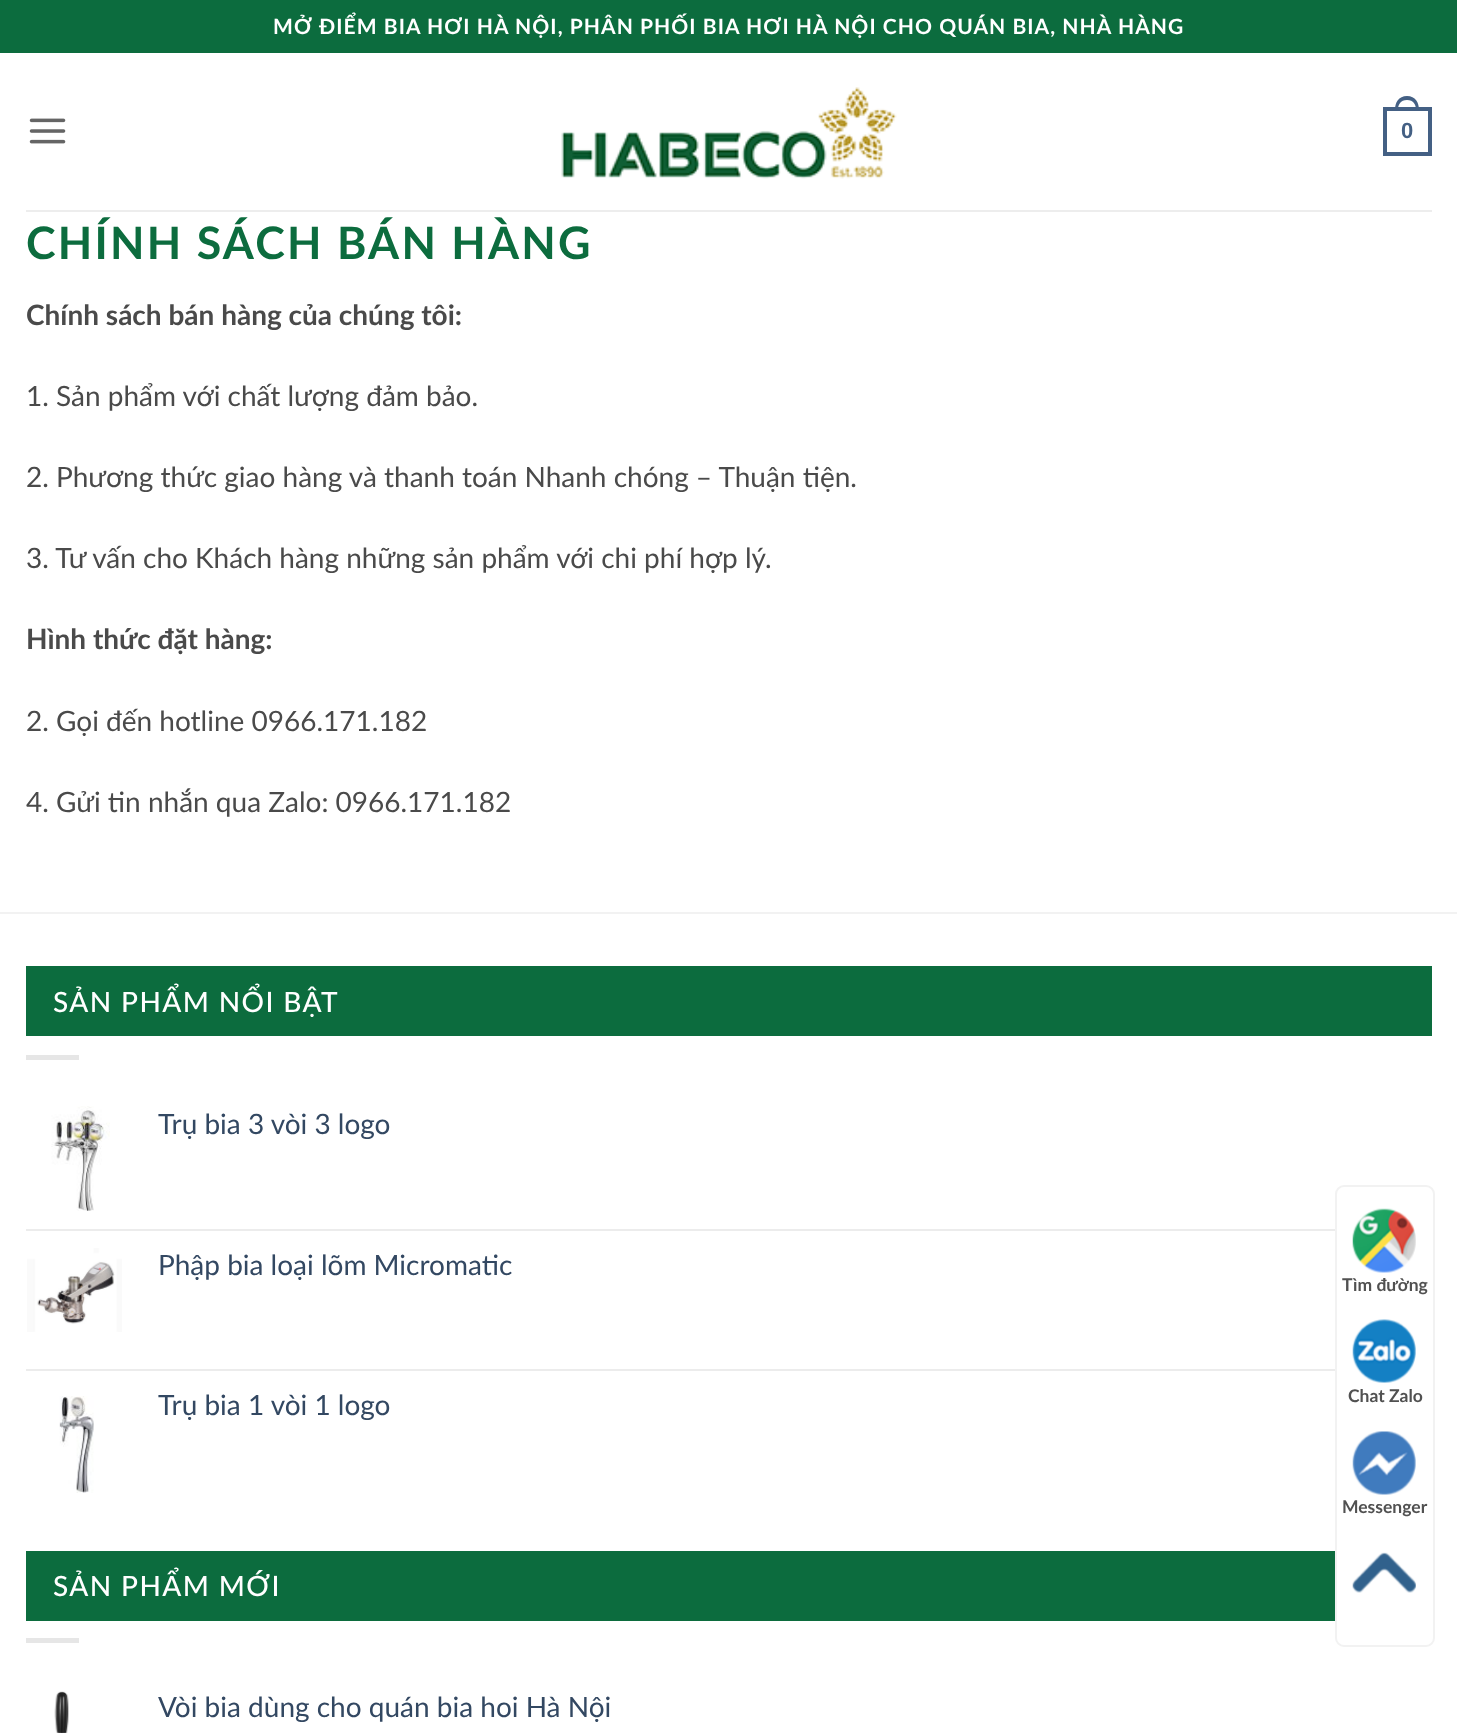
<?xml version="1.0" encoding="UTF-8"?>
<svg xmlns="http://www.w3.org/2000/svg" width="1457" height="1733">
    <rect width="100%" height="100%" fill="#FFFFFF"/>
    <rect x="0" y="0" width="1457" height="53" fill="#0C6C3E"/>
    <text x="273" y="34" font-family="Lato" font-size="21" font-weight="700" letter-spacing="1.05" fill="#FFFFFF">MỞ ĐIỂM BIA HƠI HÀ NỘI, PHÂN PHỐI BIA HƠI HÀ NỘI CHO QUÁN BIA, NHÀ HÀNG</text>
    <image x="29" y="118" width="37" height="26" href="img_01.png"/>
    <image x="561" y="87" width="336" height="92" href="img_02.png"/>
    <rect x="1385" y="109" width="45" height="45" fill="none" stroke="#446084" stroke-width="4"/>
    <path d="M 1407 96 C 1415.5 96 1419 102.5 1419 110 H 1395 C 1395 102.5 1398.5 96 1407 96 Z M 1407 100 C 1413.5 100 1416 104.5 1416 110 H 1398 C 1398 104.5 1400.5 100 1407 100 Z" fill="#446084" fill-rule="evenodd"/>
    <text x="1401" y="138" font-family="Liberation Sans" font-size="22" font-weight="700" fill="#446084">0</text>
    <rect x="26" y="210" width="1406" height="2" fill="#EDEDED"/>
    <text x="26" y="259" font-family="Lato" font-size="44.75" font-weight="700" letter-spacing="2.25" fill="#0C6C3E">CHÍNH SÁCH BÁN HÀNG</text>
    <text x="26" y="325" font-family="Lato" font-size="28" font-weight="700" fill="#4A4A4A">Chính sách bán hàng của chúng tôi:</text>
    <text x="26" y="406" font-family="Lato" font-size="28" fill="#4A4A4A">1. Sản phẩm với chất lượng đảm bảo.</text>
    <text x="26" y="487" font-family="Lato" font-size="28" fill="#4A4A4A">2. Phương thức giao hàng và thanh toán Nhanh chóng – Thuận tiện.</text>
    <text x="26" y="568" font-family="Lato" font-size="28" fill="#4A4A4A">3. Tư vấn cho Khách hàng những sản phẩm với chi phí hợp lý.</text>
    <text x="26" y="649" font-family="Lato" font-size="28" font-weight="700" fill="#4A4A4A">Hình thức đặt hàng:</text>
    <text x="26" y="731" font-family="Lato" font-size="28" fill="#4A4A4A">2. Gọi đến hotline 0966.171.182</text>
    <text x="26" y="812" font-family="Lato" font-size="28" fill="#4A4A4A">4. Gửi tin nhắn qua Zalo: 0966.171.182</text>
    <rect x="0" y="912" width="1457" height="2" fill="#F2F2F2"/>
    <rect x="26" y="966" width="1406" height="70" fill="#0C6C3E"/>
    <text x="53" y="1012" font-family="Lato" font-size="28" font-weight="500" letter-spacing="1.4" fill="#FFFFFF">SẢN PHẨM NỔI BẬT</text>
    <rect x="26" y="1055" width="53" height="5" fill="#E6E6E6"/>
    <image x="51" y="1106" width="59" height="105" href="img_03.png"/>
    <text x="158" y="1134" font-family="Lato" font-size="28" fill="#334862">Trụ bia 3 vòi 3 logo</text>
    <rect x="26" y="1229" width="1309" height="2" fill="#ECECEC"/>
    <image x="27" y="1248" width="95" height="84" href="img_04.png"/>
    <text x="158" y="1275" font-family="Lato" font-size="28" fill="#334862">Phập bia loại lõm Micromatic</text>
    <rect x="26" y="1369" width="1309" height="2" fill="#ECECEC"/>
    <image x="59" y="1396" width="35" height="97" href="img_05.png"/>
    <text x="158" y="1415" font-family="Lato" font-size="28" fill="#334862">Trụ bia 1 vòi 1 logo</text>
    <rect x="26" y="1551" width="1309" height="70" fill="#0C6C3E"/>
    <text x="53" y="1596" font-family="Lato" font-size="28" font-weight="500" letter-spacing="1.4" fill="#FFFFFF">SẢN PHẨM MỚI</text>
    <rect x="26" y="1638" width="53" height="5" fill="#E6E6E6"/>
    <image x="54" y="1691" width="15" height="42" href="img_06.png"/>
    <text x="158" y="1717" font-family="Lato" font-size="28" fill="#334862">Vòi bia dùng cho quán bia hoi Hà Nội</text>
    <rect x="1336" y="1186" width="98" height="460" rx="8" fill="none" stroke="#F2F2F2" stroke-width="2"/>
    <image x="1352" y="1208" width="64" height="65" href="img_07.png"/>
    <text x="1342" y="1291" font-family="Lato" font-size="17.5" font-weight="700" fill="#515151">Tìm đường</text>
    <image x="1352" y="1319" width="64" height="64" href="img_08.png"/>
    <text x="1348" y="1402" font-family="Lato" font-size="17.5" font-weight="700" fill="#515151">Chat Zalo</text>
    <image x="1352" y="1431" width="64" height="64" href="img_09.png"/>
    <text x="1342" y="1513" font-family="Lato" font-size="17.5" font-weight="700" fill="#515151">Messenger</text>
    <image x="1352" y="1552" width="64" height="41" href="img_10.png"/>
</svg>
